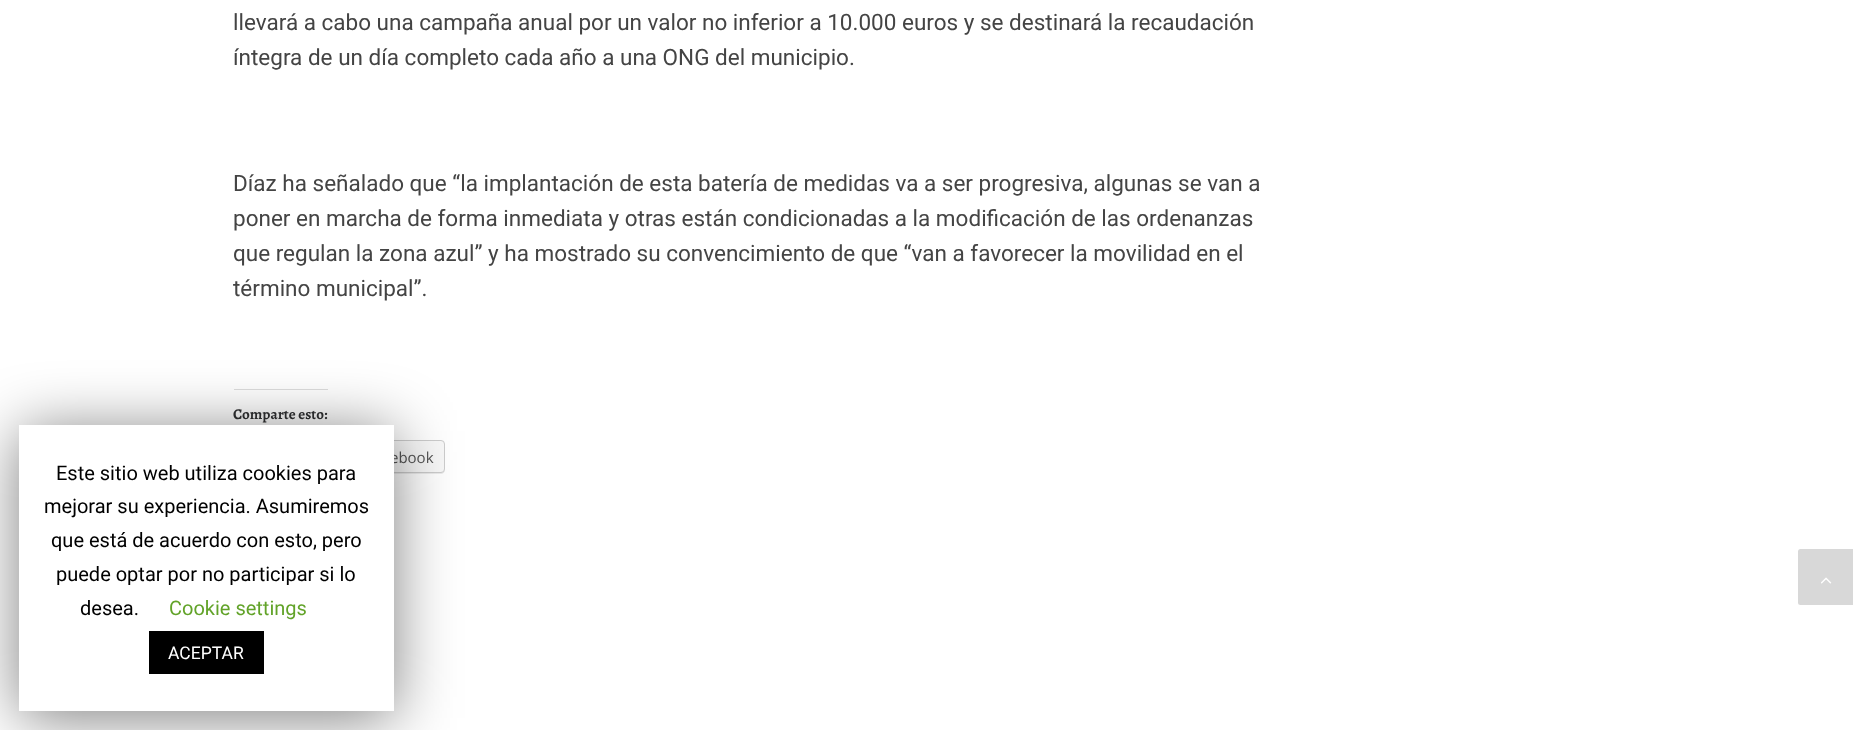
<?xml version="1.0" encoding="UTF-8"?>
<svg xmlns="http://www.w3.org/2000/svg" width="1853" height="730">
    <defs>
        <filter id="blur1" x="-50%" y="-200%" width="200%" height="500%"><feGaussianBlur stdDeviation="31"/></filter>
    </defs>
    <rect width="100%" height="100%" fill="#FFFFFF"/>
    <text font-family="Roboto" font-size="22.5" fill="#444444">
        <tspan x="233" y="30">llevará a cabo una campaña anual por un valor no inferior a 10.000 euros y se destinará la recaudación</tspan>
        <tspan x="233" y="65">íntegra de un día completo cada año a una ONG del municipio.</tspan>
    </text>
    <text font-family="Roboto" font-size="22.5" fill="#444444">
        <tspan x="233" y="191">Díaz ha señalado que “la implantación de esta batería de medidas va a ser progresiva, algunas se van a</tspan>
        <tspan x="233" y="226">poner en marcha de forma inmediata y otras están condicionadas a la modificación de las ordenanzas</tspan>
        <tspan x="233" y="261">que regulan la zona azul” y ha mostrado su convencimiento de que “van a favorecer la movilidad en el</tspan>
        <tspan x="233" y="296">término municipal”.</tspan>
    </text>
    <rect x="234" y="389" width="94" height="1" fill="#DDDDDD"/>
    <text x="233" y="419" font-family="Alegreya" font-size="15" font-weight="700" fill="#303133">Comparte esto:</text>
    <path d="M 334 470 C 334 472 336 474 338 474 H 441 C 443 474 445 472 445 470 V 469 C 445 471 443 472 441 472 H 338 C 336 472 335 472 334 470 Z" fill="#EBEBEB"/>
    <rect x="334.5" y="440.5" width="110" height="32" rx="3.5" fill="#F8F8F8" stroke="#CCCCCC"/>
    <text x="390" y="463" font-family="Open Sans" font-size="15" fill="#545454">ebook</text>
    <rect x="19" y="431" width="375" height="287" fill="#000000" fill-opacity="0.5" filter="url(#blur1)"/>
    <rect x="19" y="425" width="375" height="286" fill="#FFFFFF"/>
    <text x="56" y="480" font-family="Roboto" font-size="20" fill="#000000">Este sitio web utiliza cookies para</text>
    <text x="44" y="513" font-family="Roboto" font-size="20" fill="#000000">mejorar su experiencia. Asumiremos</text>
    <text x="51" y="547" font-family="Roboto" font-size="20" fill="#000000">que está de acuerdo con esto, pero</text>
    <text x="56" y="581" font-family="Roboto" font-size="20" fill="#000000">puede optar por no participar si lo</text>
    <text x="80" y="615" font-family="Roboto" font-size="20" fill="#000000">desea.</text>
    <text x="169" y="615" font-family="Roboto" font-size="20" fill="#62A329">Cookie settings</text>
    <rect x="149" y="631" width="115" height="43" fill="#000000"/>
    <text x="168" y="659" font-family="Roboto" font-size="17.5" fill="#FFFFFF">ACEPTAR</text>
    <rect x="1798" y="549" width="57" height="56" rx="2.5" fill="#D8D8D8"/>
    <image x="1821" y="577" width="11" height="7" href="img_01.png"/>
</svg>
